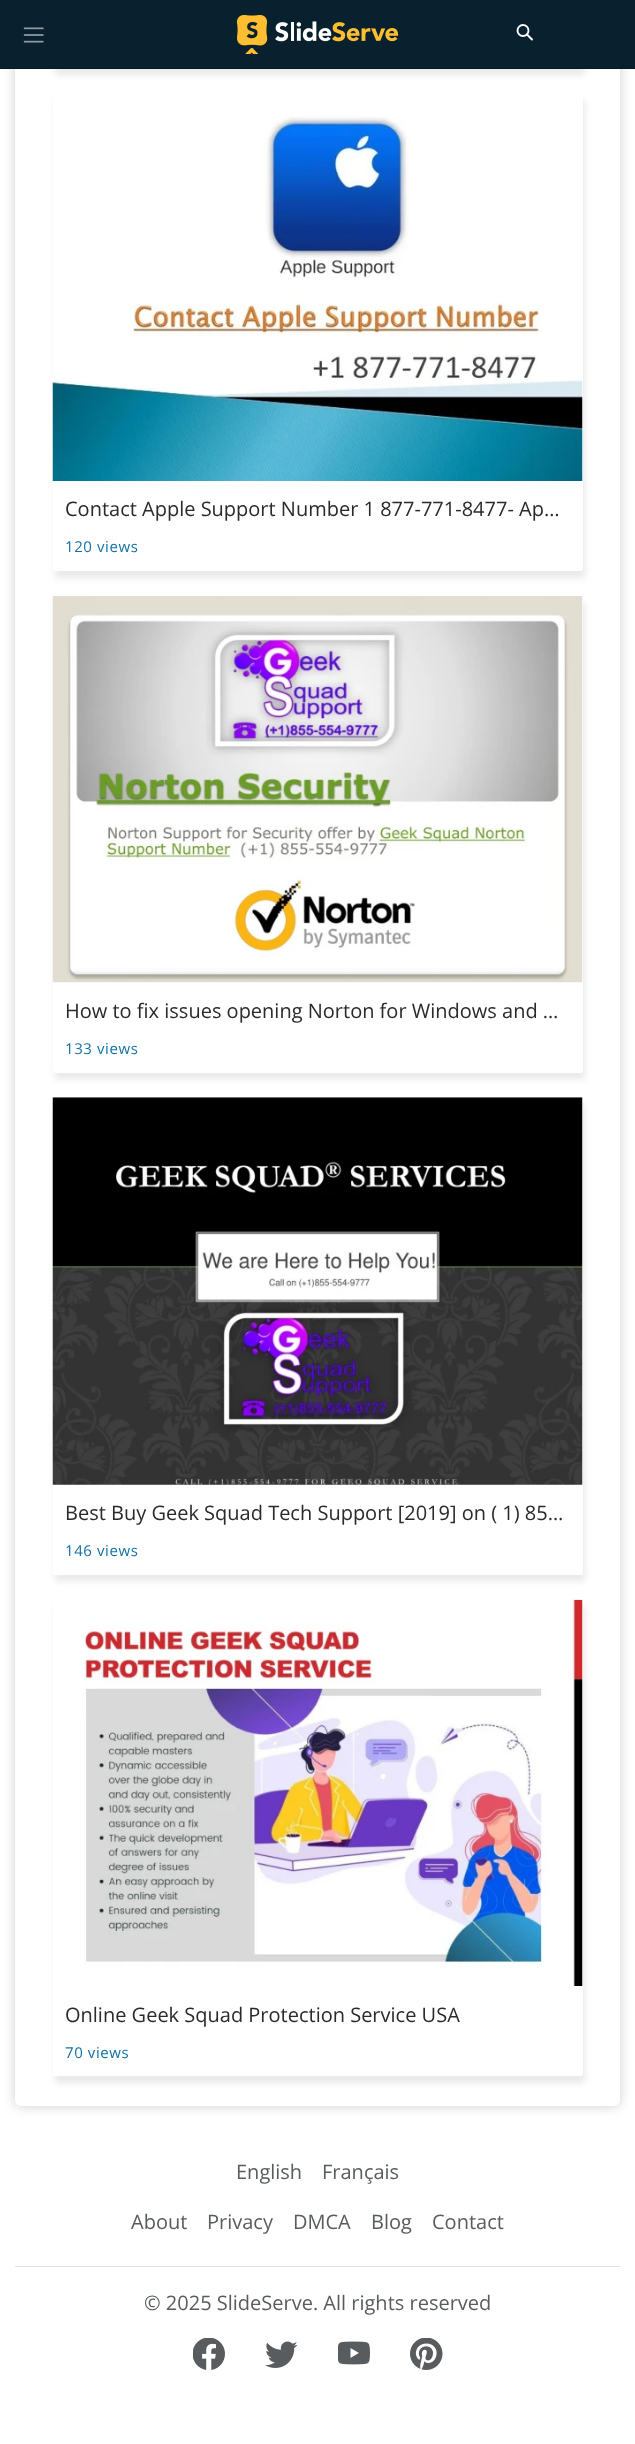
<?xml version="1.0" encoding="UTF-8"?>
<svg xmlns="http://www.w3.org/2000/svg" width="635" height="2444">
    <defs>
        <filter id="blur1" x="-50%" y="-200%" width="200%" height="500%"><feGaussianBlur stdDeviation="6"/></filter>
        <filter id="blur2" x="-50%" y="-200%" width="200%" height="500%"><feGaussianBlur stdDeviation="3"/></filter>
    </defs>
    <rect width="100%" height="100%" fill="#FFFFFF"/>
    <rect x="15" y="-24" width="605" height="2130" rx="6" fill="#000000" fill-opacity="0.2" filter="url(#blur1)"/>
    <rect x="15" y="-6" width="605" height="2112" rx="6" fill="#FFFFFF"/>
    <rect x="55" y="-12" width="530" height="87" rx="2.5" fill="#C7C7C7" fill-opacity="0.4" filter="url(#blur2)"/>
    <rect x="0" y="0" width="635" height="68" fill="#09212E"/>
    <rect x="0" y="68" width="635" height="1" fill="#061924"/>
    <image x="23" y="27" width="21" height="16" href="img_01.png"/>
    <image x="236" y="14" width="163" height="40" href="img_02.png"/>
    <circle cx="523" cy="30.5" r="5.5" fill="none" stroke="#FFFFFF" stroke-width="1.9"/>
    <path d="M 532 39.5 L 527 34.5" fill="none" stroke="#FFFFFF" stroke-width="1.9" stroke-linecap="round" stroke-linejoin="round"/>
    <rect x="55" y="100" width="530" height="478" rx="2.5" fill="#C7C7C7" fill-opacity="0.4" filter="url(#blur2)"/>
    <rect x="53" y="94" width="530" height="477" rx="2.5" fill="#FFFFFF"/>
    <image x="52" y="116" width="531" height="365" href="img_03.png"/>
    <text x="65" y="516" font-family="Open Sans" font-size="20" fill="#2B2A2A">Contact Apple Support Number 1 877-771-8477- Ap…</text>
    <text x="65" y="552" font-family="Open Sans" font-size="15" letter-spacing="0.6" fill="#1271A5">120 views</text>
    <rect x="55" y="603" width="530" height="476" rx="2.5" fill="#C7C7C7" fill-opacity="0.4" filter="url(#blur2)"/>
    <rect x="53" y="596" width="530" height="477" rx="2.5" fill="#FFFFFF"/>
    <image x="52" y="596" width="531" height="387" href="img_04.png"/>
    <text x="65" y="1018" font-family="Open Sans" font-size="20" fill="#2B2A2A">How to fix issues opening Norton for Windows and …</text>
    <text x="65" y="1054" font-family="Open Sans" font-size="15" letter-spacing="0.6" fill="#1271A5">133 views</text>
    <rect x="55" y="1104" width="530" height="477" rx="2.5" fill="#C7C7C7" fill-opacity="0.4" filter="url(#blur2)"/>
    <rect x="53" y="1098" width="530" height="477" rx="2.5" fill="#FFFFFF"/>
    <image x="52" y="1097" width="531" height="388" href="img_05.png"/>
    <text x="65" y="1520" font-family="Open Sans" font-size="20" fill="#2B2A2A">Best Buy Geek Squad Tech Support [2019] on ( 1) 85…</text>
    <text x="65" y="1556" font-family="Open Sans" font-size="15" letter-spacing="0.6" fill="#1271A5">146 views</text>
    <rect x="55" y="1606" width="530" height="477" rx="2.5" fill="#C7C7C7" fill-opacity="0.4" filter="url(#blur2)"/>
    <rect x="53" y="1600" width="530" height="476" rx="2.5" fill="#FFFFFF"/>
    <image x="84" y="1599" width="499" height="387" href="img_06.png"/>
    <text x="65" y="2022" font-family="Open Sans" font-size="20" fill="#2B2A2A">Online Geek Squad Protection Service USA</text>
    <text x="65" y="2058" font-family="Open Sans" font-size="15" letter-spacing="0.6" fill="#1271A5">70 views</text>
    <text x="236" y="2179" font-family="Open Sans" font-size="20" fill="#595C5F">English</text>
    <text x="322" y="2179" font-family="Open Sans" font-size="20" fill="#595C5F">Français</text>
    <rect x="15" y="2266" width="605" height="1" fill="#DEE2E6"/>
    <text x="131" y="2229" font-family="Open Sans" font-size="20" fill="#595C5F">About</text>
    <text x="207" y="2229" font-family="Open Sans" font-size="20" fill="#595C5F">Privacy</text>
    <text x="293" y="2229" font-family="Open Sans" font-size="20" fill="#595C5F">DMCA</text>
    <text x="371" y="2229" font-family="Open Sans" font-size="20" fill="#595C5F">Blog</text>
    <text x="432" y="2229" font-family="Open Sans" font-size="20" fill="#595C5F">Contact</text>
    <text x="144" y="2310" font-family="Open Sans" font-size="20" fill="#595C5F">© 2025 SlideServe. All rights reserved</text>
    <image x="193" y="2338" width="32" height="32" href="img_07.png"/>
    <image x="265" y="2341" width="33" height="27" href="img_08.png"/>
    <image x="338" y="2341" width="32" height="24" href="img_09.png"/>
    <image x="410" y="2338" width="33" height="32" href="img_10.png"/>
</svg>
